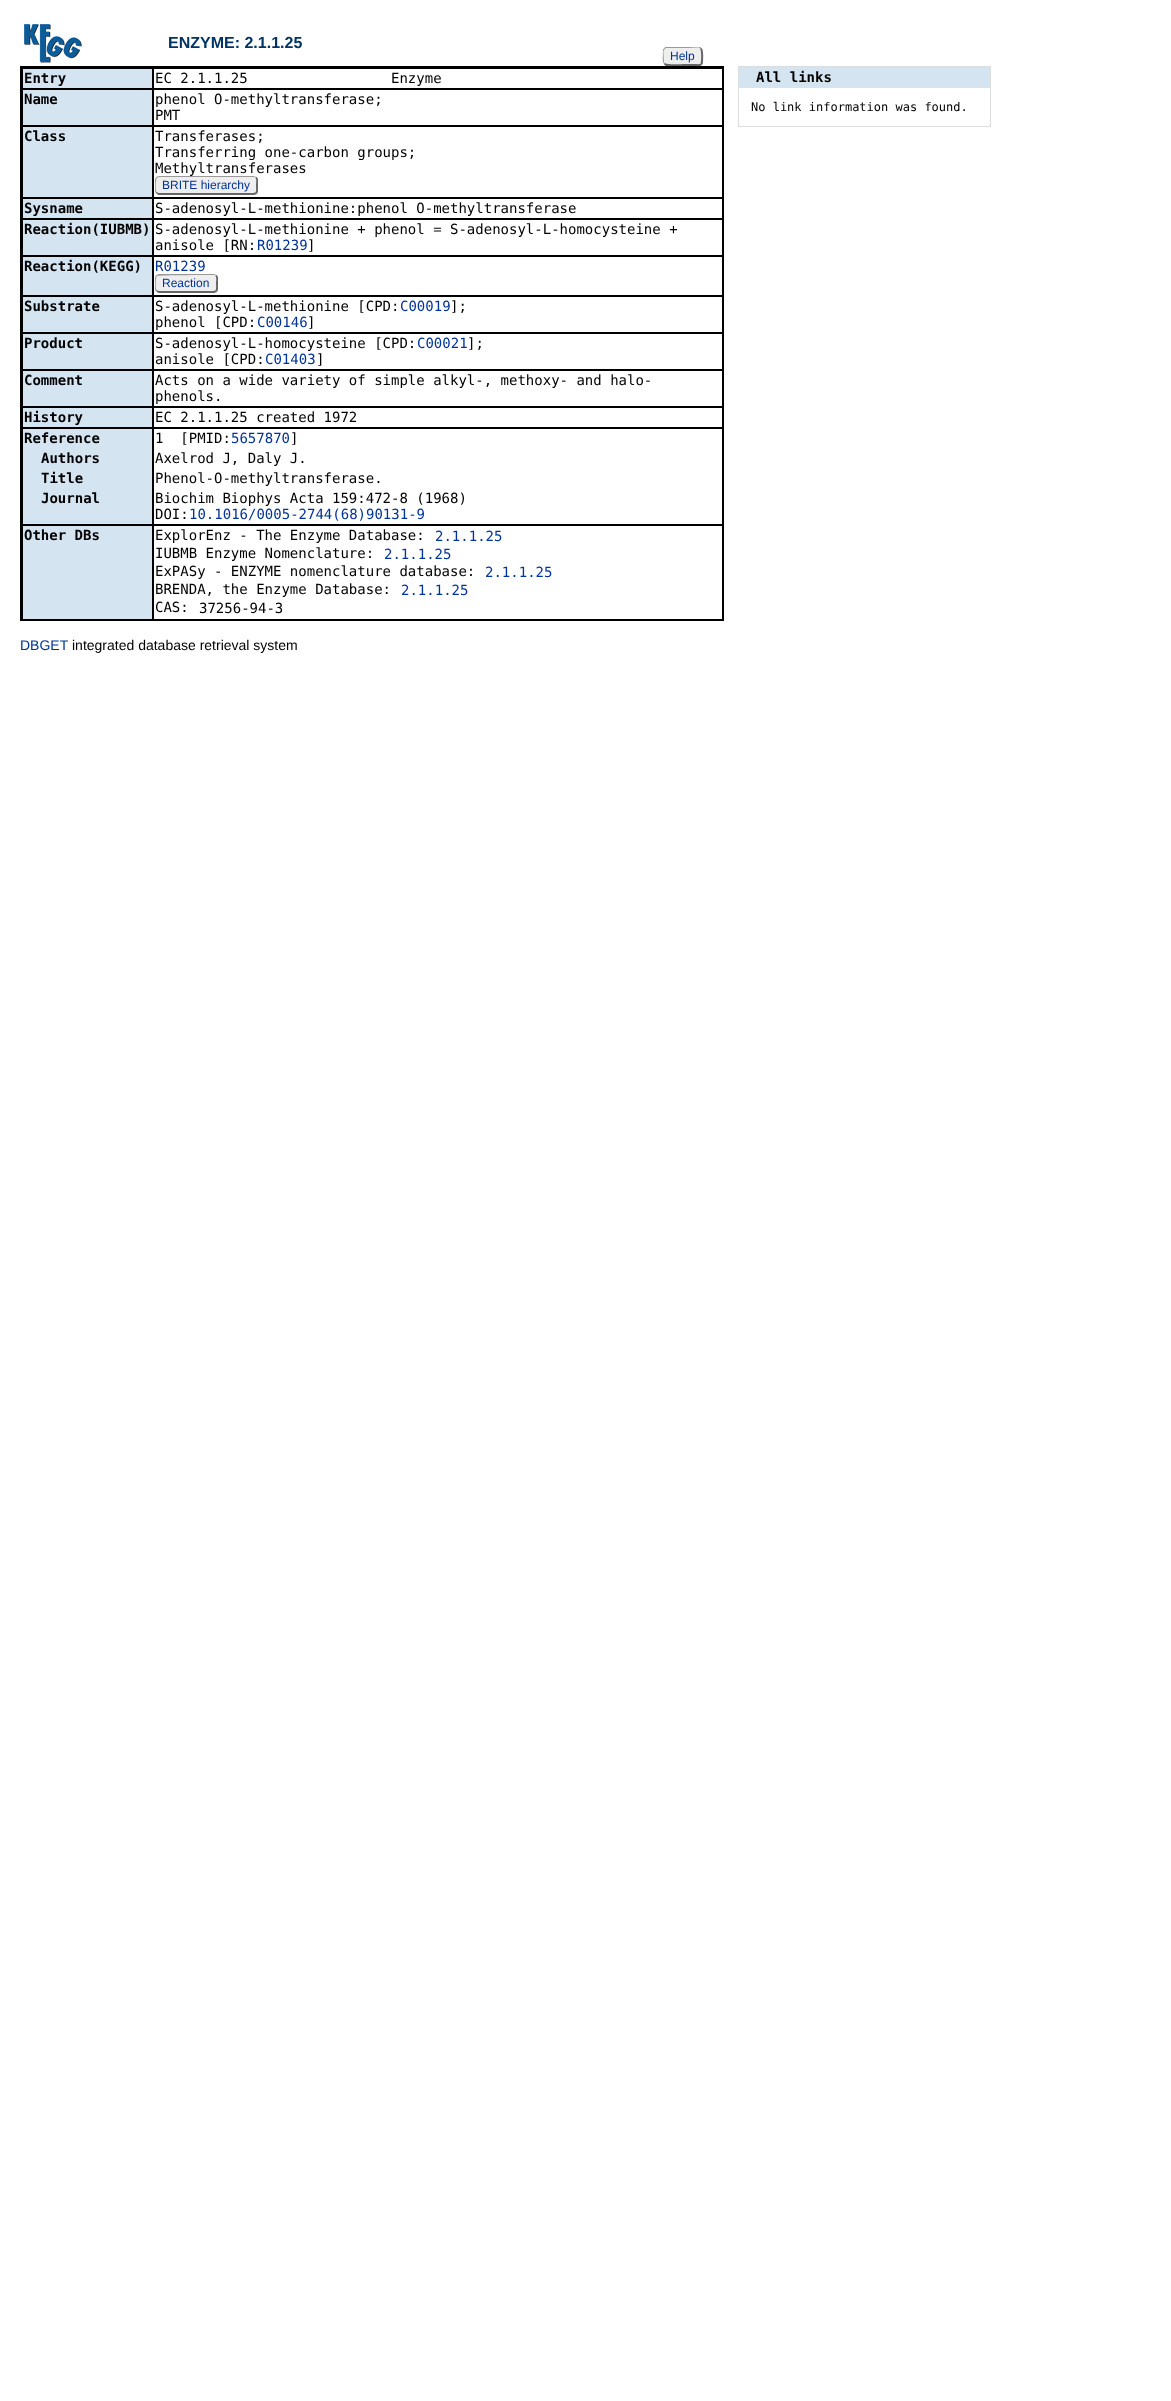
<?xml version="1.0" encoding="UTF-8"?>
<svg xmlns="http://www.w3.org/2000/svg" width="1171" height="2401">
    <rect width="100%" height="100%" fill="#FFFFFF"/>
    <image x="24" y="24" width="58" height="39" href="img_01.png"/>
    <text x="168" y="48" font-family="Liberation Sans" font-size="16" font-weight="700" fill="#003366">ENZYME: 2.1.1.25</text>
    <path d="M 667 48 H 699 C 700 48 701 49.5 701 51 V 62 C 701 63 700 64 699 64 H 667 C 665.5 64 664 63 664 62 V 51 C 664 49.5 665.5 48 667 48 Z" fill="#EEEEEE"/>
    <path d="M 667 47 C 665.5 47 664.5 47.5 664 48 L 665 49 L 666 48 H 688 L 698 47.5 C 698.5 47.5 699.5 48 700 48.5 L 701.5 48 L 700 47 Z" fill="#999999"/>
    <path d="M 703 63 L 702 65 L 700.5 63.5 C 701.5 61.5 701.5 50 700 48.5 L 701.5 48 C 704 50.5 703 59.5 703 63 Z" fill="#666666"/>
    <path d="M 666 66 C 665 65.5 664.5 65 664 64 L 664.5 63 C 667 65 681 64 685 64 H 695.5 C 696.5 64 699.5 64.5 700.5 63.5 L 702 65 C 701.5 65.5 700.5 66 699 66 Z" fill="#666666"/>
    <path d="M 663 50 L 664 48 L 665 49 C 664 49.5 664 50.5 663.5 51.5 L 664 62 L 664.5 63 L 664 64 C 662 61 663 54 663 50 Z" fill="#999999"/>
    <text x="670" y="60" font-family="Liberation Sans" font-size="12" fill="#003399">Help</text>
    <rect x="20" y="66" width="704" height="555" fill="#000000"/>
    <rect x="23" y="69" width="129" height="19" fill="#D4E4F0"/>
    <text x="24" y="83" font-family="DejaVu Sans Mono" font-size="14" font-weight="700" fill="#000000">Entry</text>
    <rect x="154" y="69" width="568" height="19" fill="#FFFFFF"/>
    <text x="155" y="83" font-family="DejaVu Sans Mono" font-size="14" fill="#000000" xml:space="preserve">EC 2.1.1.25                 Enzyme</text>
    <rect x="23" y="90" width="129" height="35" fill="#D4E4F0"/>
    <text x="24" y="104" font-family="DejaVu Sans Mono" font-size="14" font-weight="700" fill="#000000">Name</text>
    <rect x="154" y="90" width="568" height="35" fill="#FFFFFF"/>
    <text font-family="DejaVu Sans Mono" font-size="14" fill="#000000">
        <tspan x="155" y="104">phenol O-methyltransferase;</tspan>
        <tspan x="155" y="120">PMT</tspan>
    </text>
    <rect x="23" y="127" width="129" height="70" fill="#D4E4F0"/>
    <text x="24" y="141" font-family="DejaVu Sans Mono" font-size="14" font-weight="700" fill="#000000">Class</text>
    <rect x="154" y="127" width="568" height="70" fill="#FFFFFF"/>
    <text font-family="DejaVu Sans Mono" font-size="14" fill="#000000">
        <tspan x="155" y="141">Transferases;</tspan>
        <tspan x="155" y="157">Transferring one-carbon groups;</tspan>
        <tspan x="155" y="173">Methyltransferases</tspan>
    </text>
    <path d="M 159 177 H 254 C 255 177 256 178 256 180 V 191 C 256 192 255 193 254 193 H 159 C 157 193 156 192 156 191 V 180 C 156 178 157 177 159 177 Z" fill="#EEEEEE"/>
    <path d="M 159 176 L 156 177 L 157 178 L 159 177 H 175 C 183 177 254 177 255 177 H 256 L 254 176 Z" fill="#999999"/>
    <path d="M 258 191 V 180 C 258 179 257.5 177.5 256.5 177 L 255 177.5 C 257 179 256 183.5 256 185.5 C 256 187 256.5 191 255.5 192.5 L 257 194 C 257.5 193 258 192 258 191 Z" fill="#666666"/>
    <path d="M 159 195 H 254 L 257 194 L 255 192 L 254 193 H 159 L 156 192 V 193 C 157 194 158 195 159 195 Z" fill="#666666"/>
    <path d="M 155 180 V 191 C 155 192 155.5 192.5 156 193.5 L 156.5 192 C 155.5 191 155.5 179 157 178 L 156 177 C 155.5 178 155 179 155 180 Z" fill="#999999"/>
    <text x="162" y="189" font-family="Liberation Sans" font-size="12" fill="#003399">BRITE hierarchy</text>
    <rect x="23" y="199" width="129" height="19" fill="#D4E4F0"/>
    <text x="24" y="213" font-family="DejaVu Sans Mono" font-size="14" font-weight="700" fill="#000000">Sysname</text>
    <rect x="154" y="199" width="568" height="19" fill="#FFFFFF"/>
    <text x="155" y="213" font-family="DejaVu Sans Mono" font-size="14" fill="#000000">S-adenosyl-L-methionine:phenol O-methyltransferase</text>
    <rect x="23" y="220" width="129" height="35" fill="#D4E4F0"/>
    <text x="24" y="234" font-family="DejaVu Sans Mono" font-size="14" font-weight="700" fill="#000000">Reaction(IUBMB)</text>
    <rect x="154" y="220" width="568" height="35" fill="#FFFFFF"/>
    <text font-family="DejaVu Sans Mono" font-size="14" fill="#000000">
        <tspan x="155" y="234">S-adenosyl-L-methionine + phenol = S-adenosyl-L-homocysteine +</tspan>
        <tspan x="155" y="250">anisole [RN:</tspan>
    </text>
    <text x="257" y="250" font-family="DejaVu Sans Mono" font-size="14" fill="#003399">R01239</text>
    <text x="307" y="250" font-family="DejaVu Sans Mono" font-size="14" fill="#000000">]</text>
    <rect x="23" y="257" width="129" height="38" fill="#D4E4F0"/>
    <text x="24" y="271" font-family="DejaVu Sans Mono" font-size="14" font-weight="700" fill="#000000">Reaction(KEGG)</text>
    <rect x="154" y="257" width="568" height="38" fill="#FFFFFF"/>
    <text x="155" y="271" font-family="DejaVu Sans Mono" font-size="14" fill="#003399">R01239</text>
    <path d="M 159 275 H 214 C 215 275 216 276 216 278 V 289 C 216 290 215 291 214 291 H 159 C 157 291 156 290 156 289 V 278 C 156 276 157 275 159 275 Z" fill="#EEEEEE"/>
    <path d="M 159 274 L 156 275 L 157 276 C 158 275 214 275 215 275 H 216 L 214 274 Z" fill="#999999"/>
    <path d="M 218 289 V 278 C 218 277 217.5 275.5 216.5 275 L 215 275.5 C 217 277 216 281.5 216 283.5 C 216 285 216.5 289 215.5 290.5 L 217 292 C 217.5 291 218 290 218 289 Z" fill="#666666"/>
    <path d="M 159 293 H 214 L 217 292 L 215 290 L 214 291 H 159 L 156 290 V 291 C 157 292 158 293 159 293 Z" fill="#666666"/>
    <path d="M 155 278 V 289 C 155 290 155.5 290.5 156 291.5 L 156.5 290 C 155.5 289 155.5 277 157 276 L 156 275 C 155.5 276 155 277 155 278 Z" fill="#999999"/>
    <text x="162" y="287" font-family="Liberation Sans" font-size="12" fill="#003399">Reaction</text>
    <rect x="23" y="297" width="129" height="35" fill="#D4E4F0"/>
    <text x="24" y="311" font-family="DejaVu Sans Mono" font-size="14" font-weight="700" fill="#000000">Substrate</text>
    <rect x="154" y="297" width="568" height="35" fill="#FFFFFF"/>
    <text x="155" y="311" font-family="DejaVu Sans Mono" font-size="14" fill="#000000">S-adenosyl-L-methionine [CPD:</text>
    <text x="400" y="311" font-family="DejaVu Sans Mono" font-size="14" fill="#003399">C00019</text>
    <text x="450" y="311" font-family="DejaVu Sans Mono" font-size="14" fill="#000000">];</text>
    <text x="155" y="327" font-family="DejaVu Sans Mono" font-size="14" fill="#000000">phenol [CPD:</text>
    <text x="257" y="327" font-family="DejaVu Sans Mono" font-size="14" fill="#003399">C00146</text>
    <text x="307" y="327" font-family="DejaVu Sans Mono" font-size="14" fill="#000000">]</text>
    <rect x="23" y="334" width="129" height="35" fill="#D4E4F0"/>
    <text x="24" y="348" font-family="DejaVu Sans Mono" font-size="14" font-weight="700" fill="#000000">Product</text>
    <rect x="154" y="334" width="568" height="35" fill="#FFFFFF"/>
    <text x="155" y="348" font-family="DejaVu Sans Mono" font-size="14" fill="#000000">S-adenosyl-L-homocysteine [CPD:</text>
    <text x="417" y="348" font-family="DejaVu Sans Mono" font-size="14" fill="#003399">C00021</text>
    <text x="467" y="348" font-family="DejaVu Sans Mono" font-size="14" fill="#000000">];</text>
    <text x="155" y="364" font-family="DejaVu Sans Mono" font-size="14" fill="#000000">anisole [CPD:</text>
    <text x="265" y="364" font-family="DejaVu Sans Mono" font-size="14" fill="#003399">C01403</text>
    <text x="316" y="364" font-family="DejaVu Sans Mono" font-size="14" fill="#000000">]</text>
    <rect x="23" y="371" width="129" height="35" fill="#D4E4F0"/>
    <text x="24" y="385" font-family="DejaVu Sans Mono" font-size="14" font-weight="700" fill="#000000">Comment</text>
    <rect x="154" y="371" width="568" height="35" fill="#FFFFFF"/>
    <text font-family="DejaVu Sans Mono" font-size="14" fill="#000000">
        <tspan x="155" y="385">Acts on a wide variety of simple alkyl-, methoxy- and halo-</tspan>
        <tspan x="155" y="401">phenols.</tspan>
    </text>
    <rect x="23" y="408" width="129" height="19" fill="#D4E4F0"/>
    <text x="24" y="422" font-family="DejaVu Sans Mono" font-size="14" font-weight="700" fill="#000000">History</text>
    <rect x="154" y="408" width="568" height="19" fill="#FFFFFF"/>
    <text x="155" y="422" font-family="DejaVu Sans Mono" font-size="14" fill="#000000">EC 2.1.1.25 created 1972</text>
    <rect x="23" y="429" width="129" height="95" fill="#D4E4F0"/>
    <text x="24" y="443" font-family="DejaVu Sans Mono" font-size="14" font-weight="700" fill="#000000">Reference</text>
    <rect x="154" y="429" width="568" height="95" fill="#FFFFFF"/>
    <text x="155" y="443" font-family="DejaVu Sans Mono" font-size="14" fill="#000000" xml:space="preserve">1  [PMID:</text>
    <text x="231" y="443" font-family="DejaVu Sans Mono" font-size="14" fill="#003399">5657870</text>
    <text x="290" y="443" font-family="DejaVu Sans Mono" font-size="14" fill="#000000">]</text>
    <text x="41" y="463" font-family="DejaVu Sans Mono" font-size="14" font-weight="700" fill="#000000">Authors</text>
    <text x="155" y="463" font-family="DejaVu Sans Mono" font-size="14" fill="#000000">Axelrod J, Daly J.</text>
    <text x="41" y="483" font-family="DejaVu Sans Mono" font-size="14" font-weight="700" fill="#000000">Title</text>
    <text x="155" y="483" font-family="DejaVu Sans Mono" font-size="14" fill="#000000">Phenol-O-methyltransferase.</text>
    <text x="41" y="503" font-family="DejaVu Sans Mono" font-size="14" font-weight="700" fill="#000000">Journal</text>
    <text font-family="DejaVu Sans Mono" font-size="14" fill="#000000">
        <tspan x="155" y="503">Biochim Biophys Acta 159:472-8 (1968)</tspan>
        <tspan x="155" y="519">DOI:</tspan>
    </text>
    <text x="189" y="519" font-family="DejaVu Sans Mono" font-size="14" fill="#003399">10.1016/0005-2744(68)90131-9</text>
    <rect x="23" y="526" width="129" height="93" fill="#D4E4F0"/>
    <text x="24" y="540" font-family="DejaVu Sans Mono" font-size="14" font-weight="700" fill="#000000">Other DBs</text>
    <rect x="154" y="526" width="568" height="93" fill="#FFFFFF"/>
    <text x="155" y="540" font-family="DejaVu Sans Mono" font-size="14" fill="#000000">ExplorEnz - The Enzyme Database:</text>
    <text x="435" y="541" font-family="DejaVu Sans Mono" font-size="14" fill="#003399">2.1.1.25</text>
    <text x="155" y="558" font-family="DejaVu Sans Mono" font-size="14" fill="#000000">IUBMB Enzyme Nomenclature:</text>
    <text x="384" y="559" font-family="DejaVu Sans Mono" font-size="14" fill="#003399">2.1.1.25</text>
    <text x="155" y="576" font-family="DejaVu Sans Mono" font-size="14" fill="#000000">ExPASy - ENZYME nomenclature database:</text>
    <text x="485" y="577" font-family="DejaVu Sans Mono" font-size="14" fill="#003399">2.1.1.25</text>
    <text x="155" y="594" font-family="DejaVu Sans Mono" font-size="14" fill="#000000">BRENDA, the Enzyme Database:</text>
    <text x="401" y="595" font-family="DejaVu Sans Mono" font-size="14" fill="#003399">2.1.1.25</text>
    <text x="155" y="612" font-family="DejaVu Sans Mono" font-size="14" fill="#000000">CAS:</text>
    <text x="199" y="613" font-family="DejaVu Sans Mono" font-size="14" fill="#000000">37256-94-3</text>
    <rect x="738.5" y="66.5" width="252" height="60" fill="none" stroke="#DDDDDD"/>
    <rect x="739" y="67" width="251" height="21" fill="#D4E4F0"/>
    <text x="756" y="82" font-family="DejaVu Sans Mono" font-size="14" font-weight="700" fill="#000000">All links</text>
    <text x="751" y="111" font-family="DejaVu Sans Mono" font-size="12" fill="#000000">No link information was found.</text>
    <text x="20" y="650" font-family="Liberation Sans" font-size="14" fill="#003399">DBGET</text>
    <text x="72" y="650" font-family="Liberation Sans" font-size="14" fill="#000000">integrated database retrieval system</text>
</svg>
